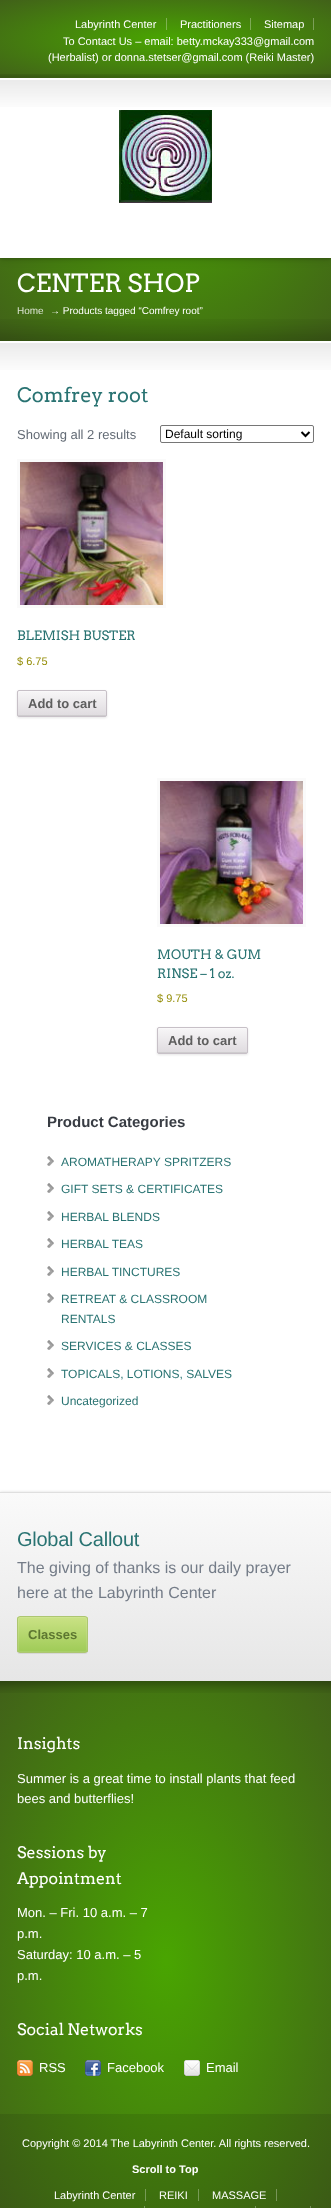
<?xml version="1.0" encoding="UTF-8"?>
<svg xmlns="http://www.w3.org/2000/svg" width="331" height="2208">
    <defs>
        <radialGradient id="g1" gradientUnits="userSpaceOnUse" cx="0" cy="0" r="1" gradientTransform="matrix(234 0 0 241 166 171)"><stop offset="0" stop-color="#49A501"/><stop offset="1" stop-color="#416119"/></radialGradient>
        <filter id="blur1" x="-50%" y="-200%" width="200%" height="500%"><feGaussianBlur stdDeviation="1.5"/></filter>
        <filter id="blur2" x="-50%" y="-200%" width="200%" height="500%"><feGaussianBlur stdDeviation="4.5"/></filter>
        <radialGradient id="g2" gradientUnits="userSpaceOnUse" cx="0" cy="0" r="1" gradientTransform="matrix(234 0 0 55 166 39)"><stop offset="0" stop-color="#49A501"/><stop offset="1" stop-color="#416119"/></radialGradient>
        <radialGradient id="g3" gradientUnits="userSpaceOnUse" cx="0" cy="0" r="1" gradientTransform="matrix(234 0 0 55 166 39)"><stop offset="0" stop-color="#80C04D"/><stop offset="1" stop-color="#7A905E"/></radialGradient>
        <filter id="blur3" x="-50%" y="-200%" width="200%" height="500%"><feGaussianBlur stdDeviation="1"/></filter>
        <clipPath id="clip1"><rect x="17" y="690" width="90" height="27" rx="2"/></clipPath>
        <linearGradient id="g4" gradientUnits="userSpaceOnUse" x1="62" y1="691" x2="62" y2="716"><stop offset="0" stop-color="#F7F6F7"/><stop offset="1" stop-color="#DFDBDF"/></linearGradient>
        <clipPath id="clip2"><rect x="157" y="1027" width="91" height="27" rx="2"/></clipPath>
        <linearGradient id="g5" gradientUnits="userSpaceOnUse" x1="203" y1="1028" x2="203" y2="1053"><stop offset="0" stop-color="#F7F6F7"/><stop offset="1" stop-color="#DFDBDF"/></linearGradient>
        <linearGradient id="g6" gradientUnits="userSpaceOnUse" x1="166" y1="1493" x2="166" y2="1681"><stop offset="0" stop-color="#FAFAFA"/><stop offset="1" stop-color="#E6E6E6"/></linearGradient>
        <filter id="blur4" x="-50%" y="-200%" width="200%" height="500%"><feGaussianBlur stdDeviation="0.5"/></filter>
        <clipPath id="clip3"><rect x="17" y="1616" width="71" height="37" rx="3"/></clipPath>
        <linearGradient id="g7" gradientUnits="userSpaceOnUse" x1="53" y1="1617" x2="53" y2="1652"><stop offset="0" stop-color="#CAE285"/><stop offset="1" stop-color="#9FCB57"/></linearGradient>
        <radialGradient id="g8" gradientUnits="userSpaceOnUse" cx="0" cy="0" r="1" gradientTransform="matrix(234 0 0 396 166 1961)"><stop offset="0" stop-color="#49A501"/><stop offset="1" stop-color="#416119"/></radialGradient>
        <radialGradient id="g9" gradientUnits="userSpaceOnUse" cx="0" cy="0" r="1" gradientTransform="matrix(234 0 0 396 166 1961)"><stop offset="0" stop-color="#429501"/><stop offset="1" stop-color="#3B5717"/></radialGradient>
    </defs>
    <rect width="100%" height="100%" fill="#FFFFFF"/>
    <rect x="0" y="258" width="331" height="83" fill="url(#g1)"/>
    <rect x="0" y="1" width="331" height="258" fill="#000000" fill-opacity="0.2" filter="url(#blur1)"/>
    <rect x="0" y="3" width="331" height="258" fill="#000000" fill-opacity="0.1" filter="url(#blur2)"/>
    <rect x="0" y="0" width="331" height="78" fill="url(#g2)"/>
    <rect x="313" y="18" width="1" height="12" fill="url(#g3)"/>
    <rect x="250" y="18" width="1" height="12" fill="url(#g3)"/>
    <rect x="166" y="18" width="1" height="12" fill="url(#g3)"/>
    <text x="75" y="28" font-family="Liberation Sans" font-size="11" fill="#FFFFFF">Labyrinth Center</text>
    <text x="180" y="28" font-family="Liberation Sans" font-size="11" fill="#FFFFFF">Practitioners</text>
    <text x="264" y="28" font-family="Liberation Sans" font-size="11" fill="#FFFFFF">Sitemap</text>
    <text x="63" y="45" font-family="Liberation Sans" font-size="11" fill="#FFFFFF">To Contact Us – email: betty.mckay333@gmail.com</text>
    <text x="48" y="61" font-family="Liberation Sans" font-size="11" fill="#FFFFFF">(Herbalist) or donna.stetser@gmail.com (Reiki Master)</text>
    <image x="0" y="74" width="331" height="4" href="img_01.png"/>
    <rect x="0" y="78" width="331" height="180" fill="#FFFFFF"/>
    <image x="0" y="80" width="331" height="27" href="img_02.png"/>
    <image x="119" y="110" width="93" height="93" href="img_03.png"/>
    <text x="17" y="292" font-family="Arvo" font-size="25" fill="#FFFFFF">CENTER SHOP</text>
    <text x="17" y="314" font-family="Liberation Sans" font-size="10" fill="#D9E2D0">Home</text>
    <text x="50" y="314" font-family="Liberation Sans" font-size="10" fill="#FFFFFF">→ Products tagged “Comfrey root”</text>
    <image x="0" y="319" width="331" height="22" href="img_04.png"/>
    <image x="0" y="343" width="331" height="27" href="img_02.png"/>
    <text x="17" y="402" font-family="Arvo" font-size="20" fill="#297372">Comfrey root</text>
    <text x="17" y="439" font-family="Liberation Sans" font-size="13" fill="#636B75">Showing all 2 results</text>
    <rect x="160.5" y="425.5" width="153" height="17" rx="1.5" fill="none" stroke="#767676"/>
    <path d="M 301.5 432 L 305.5 436 L 309.5 432" fill="none" stroke="#000000" stroke-width="2"/>
    <text x="165" y="438" font-family="Liberation Sans" font-size="12" fill="#000000">Default sorting</text>
    <rect x="18.5" y="460.5" width="146" height="146" fill="none" stroke="#FAFAFA" stroke-width="3"/>
    <image x="20" y="462" width="143" height="143" href="img_05.png"/>
    <text x="17" y="640" font-family="Arvo" font-size="13" fill="#297372">BLEMISH BUSTER</text>
    <text x="17" y="665" font-family="Liberation Sans" font-size="11" fill="#958E09">$ 6.75</text>
    <rect x="17" y="691" width="90" height="27" rx="2" fill="#000000" fill-opacity="0.1" filter="url(#blur3)"/>
    <g clip-path="url(#clip1)">
        <rect x="17" y="691" width="90" height="25" fill="url(#g4)"/>
    </g>
    <path d="M 19 692 H 105 C 106 692 106 692 106 693 C 106 692 106 691 105 691 H 19 C 18 691 18 692 18 693 C 18 692 18 692 19 692 Z" fill="#F9F8F9"/>
    <path d="M 18 714 C 18 715 18 716 19 716 H 105 C 106 716 106 715 106 714 C 106 715 106 715 105 715 H 19 C 18 715 18 715 18 714 Z" fill="#CECCCE"/>
    <rect x="17.5" y="690.5" width="89" height="26" rx="1.5" fill="none" stroke="#C7C0C7"/>
    <text x="28" y="708" font-family="Liberation Sans" font-size="13" font-weight="700" fill="#5E5E5E">Add to cart</text>
    <rect x="158.5" y="779.5" width="146" height="146" fill="none" stroke="#FAFAFA" stroke-width="3"/>
    <image x="160" y="781" width="143" height="143" href="img_06.png"/>
    <text font-family="Arvo" font-size="13" fill="#297372">
        <tspan x="157" y="959">MOUTH &amp; GUM</tspan>
        <tspan x="157" y="978">RINSE – 1 oz.</tspan>
    </text>
    <text x="157" y="1002" font-family="Liberation Sans" font-size="11" fill="#958E09">$ 9.75</text>
    <rect x="157" y="1028" width="91" height="27" rx="2" fill="#000000" fill-opacity="0.1" filter="url(#blur3)"/>
    <g clip-path="url(#clip2)">
        <rect x="157" y="1028" width="91" height="25" fill="url(#g5)"/>
    </g>
    <path d="M 159 1029 H 246 C 247 1029 247 1029 247 1030 C 247 1029 247 1028 246 1028 H 159 C 158 1028 158 1029 158 1030 C 158 1029 158 1029 159 1029 Z" fill="#F9F8F9"/>
    <path d="M 158 1051 C 158 1052 158 1053 159 1053 H 246 C 247 1053 247 1052 247 1051 C 247 1052 247 1052 246 1052 H 159 C 158 1052 158 1052 158 1051 Z" fill="#CECCCE"/>
    <rect x="157.5" y="1027.5" width="90" height="26" rx="1.5" fill="none" stroke="#C7C0C7"/>
    <text x="168" y="1045" font-family="Liberation Sans" font-size="13" font-weight="700" fill="#5E5E5E">Add to cart</text>
    <text x="47" y="1127" font-family="Liberation Sans" font-size="15" font-weight="700" fill="#383C43">Product Categories</text>
    <image x="47" y="1156" width="7" height="10" href="img_07.png"/>
    <text x="61" y="1166" font-family="Liberation Sans" font-size="12" fill="#297372">AROMATHERAPY SPRITZERS</text>
    <image x="47" y="1183" width="7" height="10" href="img_07.png"/>
    <text x="61" y="1193" font-family="Liberation Sans" font-size="12" fill="#297372">GIFT SETS &amp; CERTIFICATES</text>
    <image x="47" y="1211" width="7" height="10" href="img_07.png"/>
    <text x="61" y="1221" font-family="Liberation Sans" font-size="12" fill="#297372">HERBAL BLENDS</text>
    <image x="47" y="1238" width="7" height="10" href="img_07.png"/>
    <text x="61" y="1248" font-family="Liberation Sans" font-size="12" fill="#297372">HERBAL TEAS</text>
    <image x="47" y="1266" width="7" height="10" href="img_07.png"/>
    <text x="61" y="1276" font-family="Liberation Sans" font-size="12" fill="#297372">HERBAL TINCTURES</text>
    <image x="47" y="1293" width="7" height="10" href="img_07.png"/>
    <text font-family="Liberation Sans" font-size="12" fill="#297372">
        <tspan x="61" y="1303">RETREAT &amp; CLASSROOM</tspan>
        <tspan x="61" y="1323">RENTALS</tspan>
    </text>
    <image x="47" y="1340" width="7" height="10" href="img_07.png"/>
    <text x="61" y="1350" font-family="Liberation Sans" font-size="12" fill="#297372">SERVICES &amp; CLASSES</text>
    <image x="47" y="1368" width="7" height="10" href="img_07.png"/>
    <text x="61" y="1378" font-family="Liberation Sans" font-size="12" fill="#297372">TOPICALS, LOTIONS, SALVES</text>
    <image x="47" y="1395" width="7" height="10" href="img_07.png"/>
    <text x="61" y="1405" font-family="Liberation Sans" font-size="12" fill="#297372">Uncategorized</text>
    <rect x="0" y="1492" width="331" height="189" fill="#DDDDDD" filter="url(#blur1)"/>
    <rect x="0" y="1493" width="331" height="188" fill="url(#g6)"/>
    <rect x="0" y="1492" width="331" height="1" fill="#DFDFDF"/>
    <text x="17" y="1546" font-family="Liberation Sans" font-size="20" letter-spacing="-0.25" fill="#297372">Global Callout</text>
    <text font-family="Liberation Sans" font-size="16" fill="#747C88">
        <tspan x="17" y="1573">The giving of thanks is our daily prayer</tspan>
        <tspan x="17" y="1598">here at the Labyrinth Center</tspan>
    </text>
    <rect x="17" y="1617" width="71" height="37" rx="3" fill="#000000" fill-opacity="0.08" filter="url(#blur4)"/>
    <g clip-path="url(#clip3)">
        <rect x="17" y="1617" width="71" height="35" fill="url(#g7)"/>
    </g>
    <rect x="18.5" y="1617.5" width="68" height="34" rx="1.5" fill="none" stroke="#FFFFFF" stroke-opacity="0.1"/>
    <rect x="17.5" y="1616.5" width="70" height="36" rx="2.5" fill="none" stroke="#ADC671"/>
    <text x="28" y="1639" font-family="Liberation Sans" font-size="13" font-weight="700" fill="#5D7731">Classes</text>
    <rect x="0" y="1681" width="331" height="433" fill="url(#g8)"/>
    <rect x="0" y="2114" width="331" height="94" fill="url(#g9)"/>
    <image x="0" y="1681" width="331" height="12" href="img_08.png"/>
    <text x="17" y="1749" font-family="Arvo" font-size="16" fill="#FFFFFF">Insights</text>
    <text font-family="Liberation Sans" font-size="13" fill="#FFFFFF">
        <tspan x="17" y="1783">Summer is a great time to install plants that feed</tspan>
        <tspan x="17" y="1803">bees and butterflies!</tspan>
    </text>
    <text font-family="Arvo" font-size="16" fill="#FFFFFF">
        <tspan x="17" y="1858">Sessions by</tspan>
        <tspan x="17" y="1884">Appointment</tspan>
    </text>
    <text font-family="Liberation Sans" font-size="13" fill="#FFFFFF">
        <tspan x="17" y="1917">Mon. – Fri. 10 a.m. – 7</tspan>
        <tspan x="17" y="1938">p.m.</tspan>
        <tspan x="17" y="1959">Saturday: 10 a.m. – 5</tspan>
        <tspan x="17" y="1980">p.m.</tspan>
    </text>
    <text x="17" y="2035" font-family="Arvo" font-size="16" fill="#FFFFFF">Social Networks</text>
    <image x="17" y="2060" width="16" height="16" href="img_09.png"/>
    <text x="39" y="2072" font-family="Liberation Sans" font-size="13" fill="#FFFFFF">RSS</text>
    <image x="85" y="2060" width="16" height="16" href="img_10.png"/>
    <text x="107" y="2072" font-family="Liberation Sans" font-size="13" fill="#FFFFFF">Facebook</text>
    <image x="184" y="2060" width="16" height="16" href="img_11.png"/>
    <text x="206" y="2072" font-family="Liberation Sans" font-size="13" fill="#FFFFFF">Email</text>
    <text x="22" y="2147" font-family="Liberation Sans" font-size="11" fill="#FFFFFF">Copyright © 2014 The Labyrinth Center. All rights reserved.</text>
    <text x="132" y="2173" font-family="Liberation Sans" font-size="11" font-weight="700" fill="#FFFFFF">Scroll to Top</text>
    <text x="54" y="2199" font-family="Liberation Sans" font-size="11" fill="#FFFFFF">Labyrinth Center</text>
    <rect x="145" y="2189" width="1" height="12" fill="#779B56"/>
    <text x="159" y="2199" font-family="Liberation Sans" font-size="11" fill="#FFFFFF">REIKI</text>
    <rect x="198" y="2189" width="1" height="12" fill="#779B56"/>
    <text x="212" y="2199" font-family="Liberation Sans" font-size="11" fill="#FFFFFF">MASSAGE</text>
    <rect x="276" y="2189" width="1" height="12" fill="#779458"/>
    <rect x="144" y="2206" width="1" height="2" fill="#779A57"/>
    <rect x="255" y="2206" width="1" height="2" fill="#779558"/>
    <rect x="310" y="2206" width="1" height="2" fill="#768F5A"/>
</svg>
